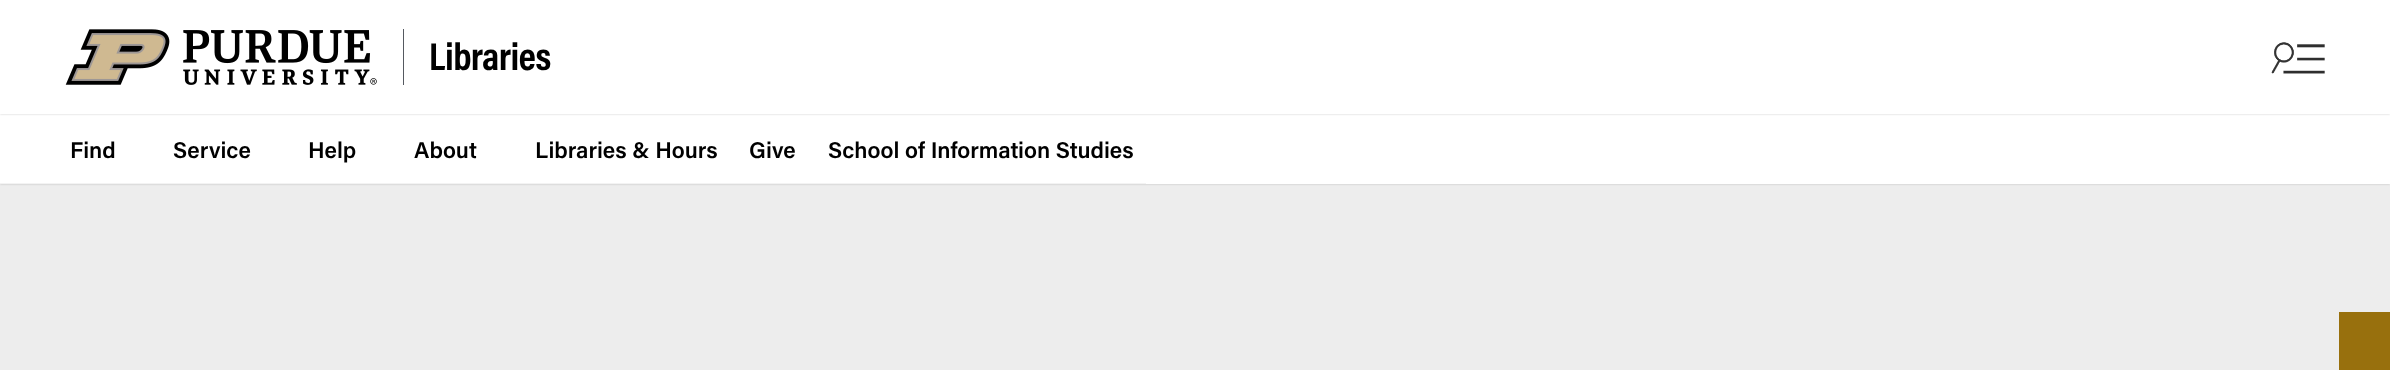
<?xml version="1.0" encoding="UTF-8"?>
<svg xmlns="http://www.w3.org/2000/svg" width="2390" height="370">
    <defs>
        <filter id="blur1" x="-50%" y="-200%" width="200%" height="500%"><feGaussianBlur stdDeviation="1"/></filter>
    </defs>
    <rect width="100%" height="100%" fill="#EDEDED"/>
    <rect x="0" y="114" width="2390" height="70" fill="#000000" fill-opacity="0.2" filter="url(#blur1)"/>
    <rect x="0" y="114" width="2390" height="70" fill="#FFFFFF"/>
    <rect x="0" y="0" width="2390" height="114" fill="#000000" fill-opacity="0.2" filter="url(#blur1)"/>
    <rect x="0" y="0" width="2390" height="114" fill="#FFFFFF"/>
    <rect x="403" y="29" width="1" height="56" fill="#555960"/>
    <image x="65" y="29" width="312" height="56" href="img_01.png"/>
    <text x="429" y="70" font-family="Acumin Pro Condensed" font-size="39" font-weight="700" letter-spacing="-0.6" fill="#000000">Libraries</text>
    <image x="2271" y="42" width="54" height="32" href="img_02.png"/>
    <rect x="0" y="183" width="1146" height="1" fill="#F3F3F3"/>
    <text x="70" y="158" font-family="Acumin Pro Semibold" font-size="22.7" font-weight="600" fill="#000000">Find</text>
    <text x="173" y="158" font-family="Acumin Pro Semibold" font-size="22.7" font-weight="600" fill="#000000">Service</text>
    <text x="308" y="158" font-family="Acumin Pro Semibold" font-size="22.7" font-weight="600" fill="#000000">Help</text>
    <text x="414" y="158" font-family="Acumin Pro Semibold" font-size="22.7" font-weight="600" fill="#000000">About</text>
    <text x="535" y="158" font-family="Acumin Pro Semibold" font-size="22.7" font-weight="600" fill="#000000">Libraries &amp; Hours</text>
    <text x="749" y="158" font-family="Acumin Pro Semibold" font-size="22.7" font-weight="600" fill="#000000">Give</text>
    <text x="828" y="158" font-family="Acumin Pro Semibold" font-size="22.7" font-weight="600" fill="#000000">School of Information Studies</text>
    <rect x="2339" y="312" width="51" height="58" fill="#98700D"/>
</svg>
